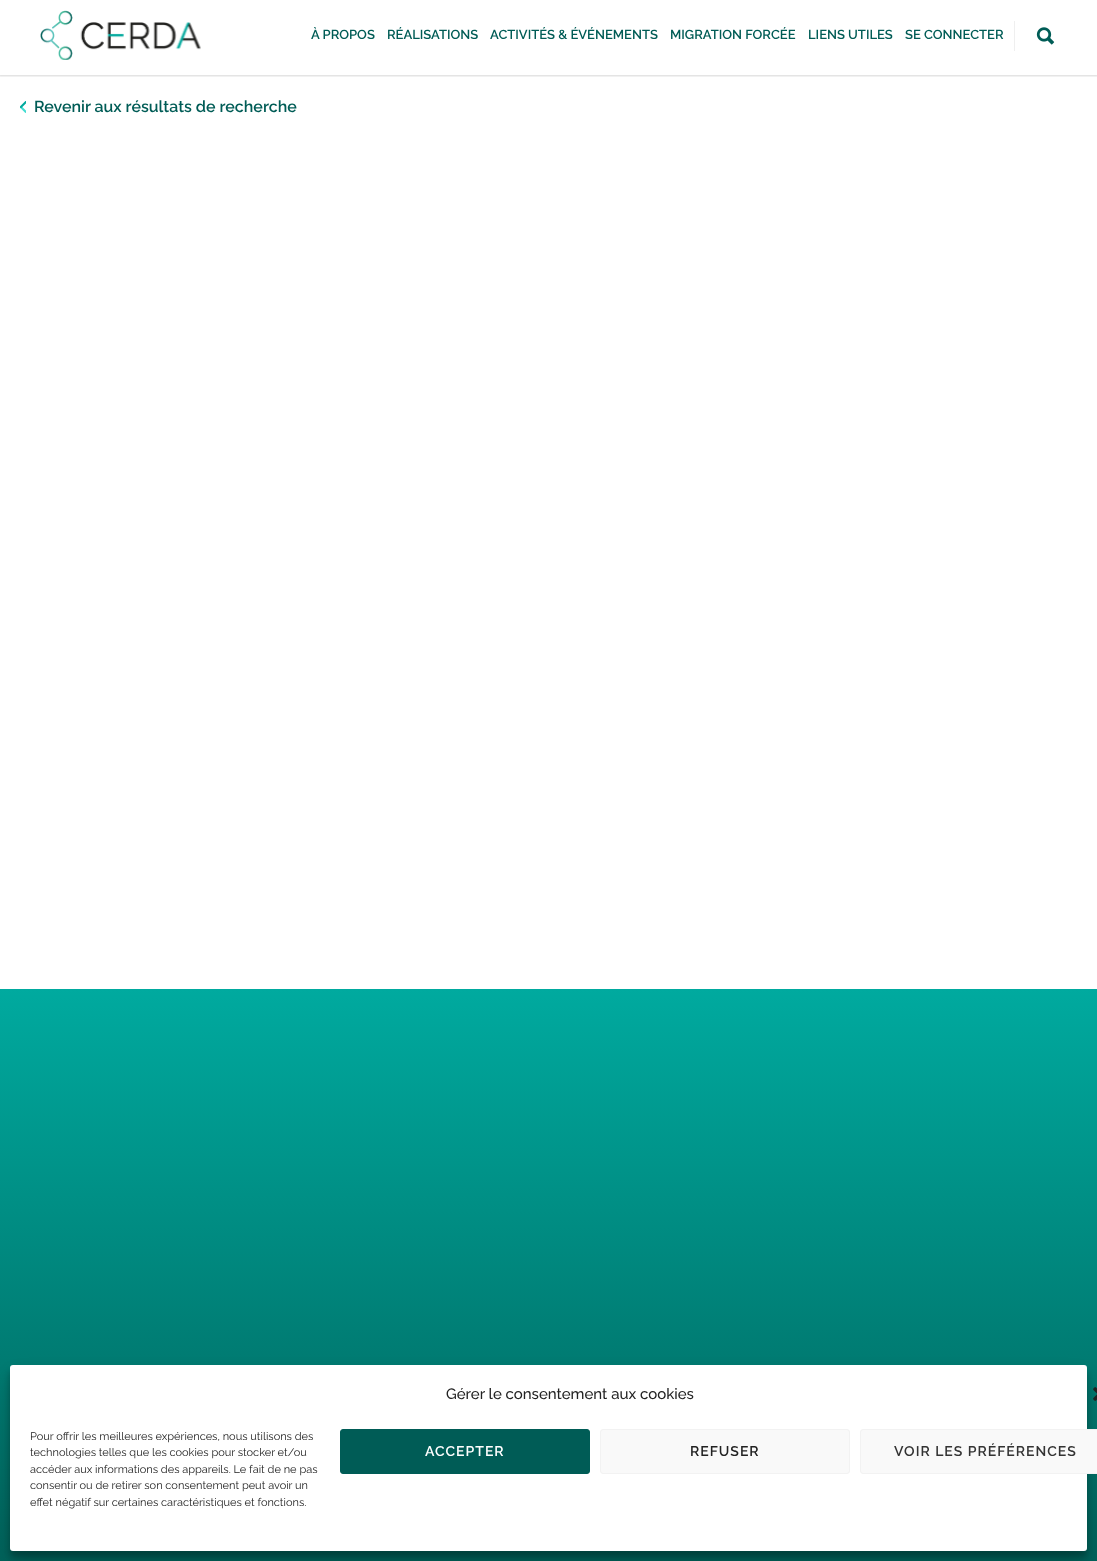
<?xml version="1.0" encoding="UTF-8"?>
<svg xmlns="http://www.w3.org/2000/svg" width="1097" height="1561">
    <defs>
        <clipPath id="clip1"><rect x="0" y="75" width="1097" height="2"/></clipPath>
        <filter id="blur1" x="-50%" y="-200%" width="200%" height="500%"><feGaussianBlur stdDeviation="1"/></filter>
        <linearGradient id="g1" gradientUnits="userSpaceOnUse" x1="549" y1="989" x2="549" y2="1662"><stop offset="0" stop-color="#00AA9F"/><stop offset="0.33" stop-color="#008E84"/><stop offset="1" stop-color="#00554E"/></linearGradient>
        <filter id="blur2" x="-50%" y="-200%" width="200%" height="500%"><feGaussianBlur stdDeviation="3"/></filter>
        <filter id="blur3" x="-50%" y="-200%" width="200%" height="500%"><feGaussianBlur stdDeviation="10"/></filter>
    </defs>
    <rect width="100%" height="100%" fill="#FFFFFF"/>
    <g clip-path="url(#clip1)">
        <rect x="-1" y="-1" width="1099" height="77" fill="#000000" fill-opacity="0.16" filter="url(#blur1)"/>
    </g>
    <image x="40" y="10" width="161" height="50" href="img_01.png"/>
    <text x="311" y="39" font-family="Raleway" font-size="13" font-weight="100" fill="#005C56">À PROPOS</text>
    <text x="387" y="39" font-family="Raleway" font-size="13" font-weight="100" fill="#005C56">RÉALISATIONS</text>
    <text x="490" y="39" font-family="Raleway" font-size="13" font-weight="100" fill="#005C56">ACTIVITÉS &amp; ÉVÉNEMENTS</text>
    <text x="670" y="39" font-family="Raleway" font-size="13" font-weight="100" fill="#005C56">MIGRATION FORCÉE</text>
    <text x="808" y="39" font-family="Raleway" font-size="13" font-weight="100" fill="#005C56">LIENS UTILES</text>
    <text x="905" y="39" font-family="Raleway" font-size="13" font-weight="100" fill="#005C56">SE CONNECTER</text>
    <rect x="1014" y="21" width="1" height="30" fill="#EFEFEF"/>
    <image x="1036" y="27" width="19" height="18" href="img_02.png"/>
    <image x="20" y="101" width="6" height="12" href="img_03.png"/>
    <text x="34" y="112" font-family="Raleway" font-size="16" font-weight="100" fill="#005C56">Revenir aux résultats de recherche</text>
    <rect x="0" y="989" width="1097" height="572" fill="url(#g1)"/>
    <rect x="10" y="1371" width="1077" height="186" rx="3" fill="#000000" fill-opacity="0.23" filter="url(#blur2)"/>
    <rect x="10" y="1375" width="1077" height="186" rx="3" fill="#000000" fill-opacity="0.19" filter="url(#blur3)"/>
    <rect x="10" y="1365" width="1077" height="186" rx="3" fill="#FFFFFF"/>
    <text x="446" y="1399" font-family="'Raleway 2'" font-size="15" font-weight="100" fill="#222222">Gérer le consentement aux cookies</text>
    <image x="1093" y="1387" width="4" height="14" href="img_04.png"/>
    <text font-family="'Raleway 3'" font-size="11" font-weight="100" fill="#222222">
        <tspan x="30" y="1440">Pour offrir les meilleures expériences, nous utilisons des</tspan>
        <tspan x="30" y="1456">technologies telles que les cookies pour stocker et/ou</tspan>
        <tspan x="30" y="1473">accéder aux informations des appareils. Le fait de ne pas</tspan>
        <tspan x="30" y="1489">consentir ou de retirer son consentement peut avoir un</tspan>
        <tspan x="30" y="1506">effet négatif sur certaines caractéristiques et fonctions.</tspan>
    </text>
    <rect x="340.5" y="1429.5" width="249" height="44" rx="2.5" fill="#005C56" stroke="#005C56"/>
    <text x="425" y="1456" font-family="Raleway" font-size="14" font-weight="100" letter-spacing="1" fill="#FFFFFF">ACCEPTER</text>
    <rect x="600.5" y="1429.5" width="249" height="44" rx="2.5" fill="#F9F9F9" stroke="#F2F2F2"/>
    <text x="690" y="1456" font-family="Raleway" font-size="14" font-weight="100" letter-spacing="1" fill="#222222">REFUSER</text>
    <rect x="860.5" y="1429.5" width="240" height="44" rx="2.5" fill="#F9F9F9" stroke="#F2F2F2"/>
    <text x="894" y="1456" font-family="Raleway" font-size="14" font-weight="100" letter-spacing="1" fill="#333333">VOIR LES PRÉFÉRENCES</text>
</svg>
